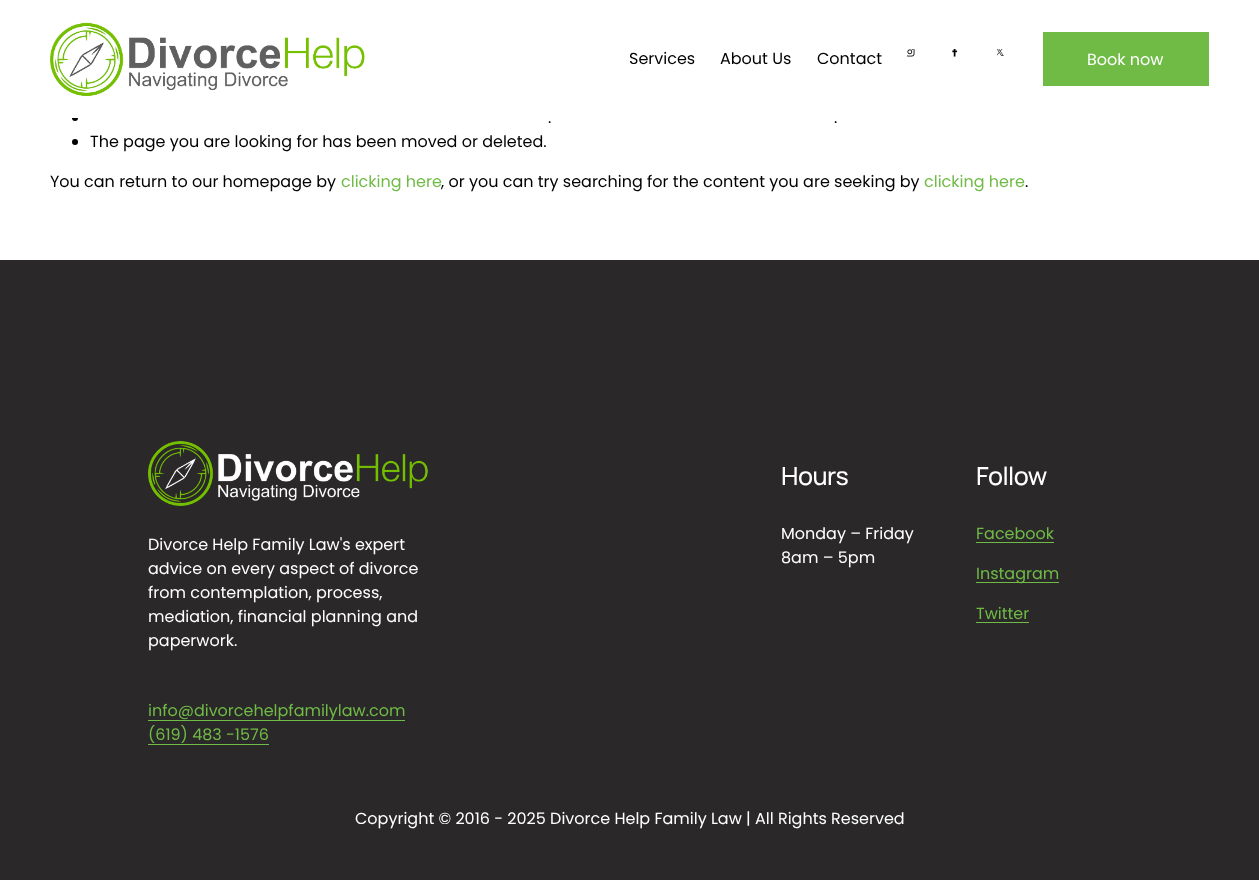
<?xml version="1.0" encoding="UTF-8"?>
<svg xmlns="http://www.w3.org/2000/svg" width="1259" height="880">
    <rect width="100%" height="100%" fill="#FFFFFF"/>
    <image x="50" y="22" width="315" height="74" href="img_01.png"/>
    <text x="629" y="64" font-family="Poppins" font-size="16" fill="#000000">Services</text>
    <text x="720" y="64" font-family="Poppins" font-size="16" fill="#000000">About Us</text>
    <text x="817" y="64" font-family="Poppins" font-size="16" fill="#000000">Contact</text>
    <image x="907" y="49" width="8" height="8" href="img_02.png"/>
    <image x="952" y="49" width="6" height="8" href="img_03.png"/>
    <image x="997" y="49" width="7" height="7" href="img_04.png"/>
    <rect x="1043" y="32" width="166" height="54" fill="#6FBB46"/>
    <text x="1087" y="65" font-family="Poppins" font-size="16" fill="#FFFFFF">Book now</text>
    <circle cx="75" cy="118" r="3" fill="#000000"/>
    <rect x="72" y="115" width="6" height="3" fill="#FFFFFF"/>
    <text x="548" y="123" font-family="Poppins" font-size="16" fill="#000000">.</text>
    <text x="834" y="123" font-family="Poppins" font-size="16" fill="#000000">.</text>
    <circle cx="75" cy="142" r="3" fill="#000000"/>
    <text x="90" y="147" font-family="Poppins" font-size="16" fill="#000000">The page you are looking for has been moved or deleted.</text>
    <text x="50" y="187" font-family="Poppins" font-size="16" fill="#000000">You can return to our homepage by</text>
    <text x="341" y="187" font-family="Poppins" font-size="16" fill="#6FBB46">clicking here</text>
    <text x="441" y="187" font-family="Poppins" font-size="16" fill="#000000">, or you can try searching for the content you are seeking by</text>
    <text x="924" y="187" font-family="Poppins" font-size="16" fill="#6FBB46">clicking here</text>
    <text x="1025" y="187" font-family="Poppins" font-size="16" fill="#000000">.</text>
    <rect x="0" y="260" width="1259" height="620" fill="#2A2829"/>
    <image x="148" y="441" width="280" height="65" href="img_05.png"/>
    <text x="781" y="485" font-family="Manrope" font-size="25" font-weight="500" letter-spacing="-0.5" fill="#FFFFFF">Hours</text>
    <text font-family="Poppins" font-size="16" fill="#FFFFFF">
        <tspan x="781" y="539">Monday – Friday</tspan>
        <tspan x="781" y="563">8am – 5pm</tspan>
    </text>
    <text x="976" y="485" font-family="Manrope" font-size="25" font-weight="500" letter-spacing="-0.5" fill="#FFFFFF">Follow</text>
    <text x="976" y="539" font-family="Poppins" font-size="16" fill="#6FBB46">Facebook</text>
    <rect x="976" y="542" width="78" height="1" fill="#6FBB46"/>
    <rect x="976" y="582" width="83" height="1" fill="#6FBB46"/>
    <text x="976" y="579" font-family="Poppins" font-size="16" fill="#6FBB46">Instagram</text>
    <text x="976" y="619" font-family="Poppins" font-size="16" fill="#6FBB46">Twitter</text>
    <rect x="976" y="622" width="53" height="1" fill="#6FBB46"/>
    <text font-family="Poppins" font-size="16" fill="#FFFFFF">
        <tspan x="148" y="550">Divorce Help Family Law's expert</tspan>
        <tspan x="148" y="574">advice on every aspect of divorce</tspan>
        <tspan x="148" y="598">from contemplation, process,</tspan>
        <tspan x="148" y="622">mediation, financial planning and</tspan>
        <tspan x="148" y="646">paperwork.</tspan>
    </text>
    <rect x="148" y="720" width="257" height="1" fill="#6FBB46"/>
    <text font-family="Poppins" font-size="16" fill="#6FBB46">
        <tspan x="148" y="716">info@divorcehelpfamilylaw.com</tspan>
        <tspan x="148" y="740">(619) 483 -1576</tspan>
    </text>
    <rect x="148" y="744" width="121" height="1" fill="#6FBB46"/>
    <text x="355" y="824" font-family="Poppins" font-size="16" fill="#FFFFFF">Copyright © 2016 - 2025 Divorce Help Family Law | All Rights Reserved</text>
</svg>
